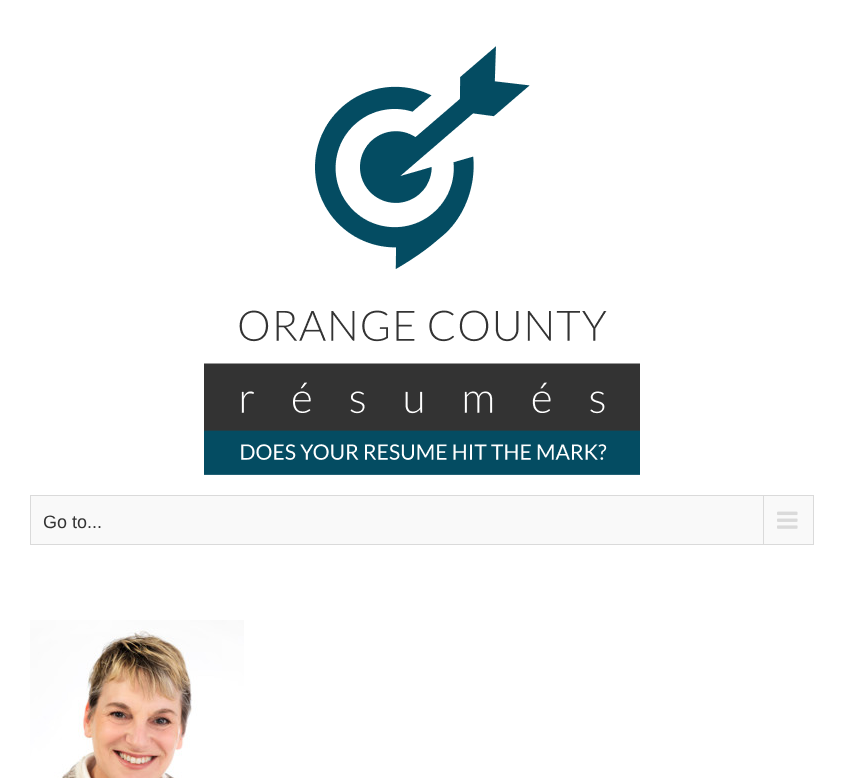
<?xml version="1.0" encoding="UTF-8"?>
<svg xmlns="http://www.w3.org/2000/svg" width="844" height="778">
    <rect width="100%" height="100%" fill="#FFFFFF"/>
    <image x="204" y="46" width="436" height="429" href="img_01.png"/>
    <rect x="30.5" y="495.5" width="783" height="49" fill="#F9F9F9" stroke="#DADADA"/>
    <text x="43" y="528" font-family="Liberation Sans" font-size="18" fill="#333333">Go to...</text>
    <rect x="763" y="496" width="1" height="48" fill="#DADADA"/>
    <image x="777" y="511" width="21" height="18" href="img_02.png"/>
    <image x="30" y="620" width="214" height="158" href="img_03.png"/>
</svg>
